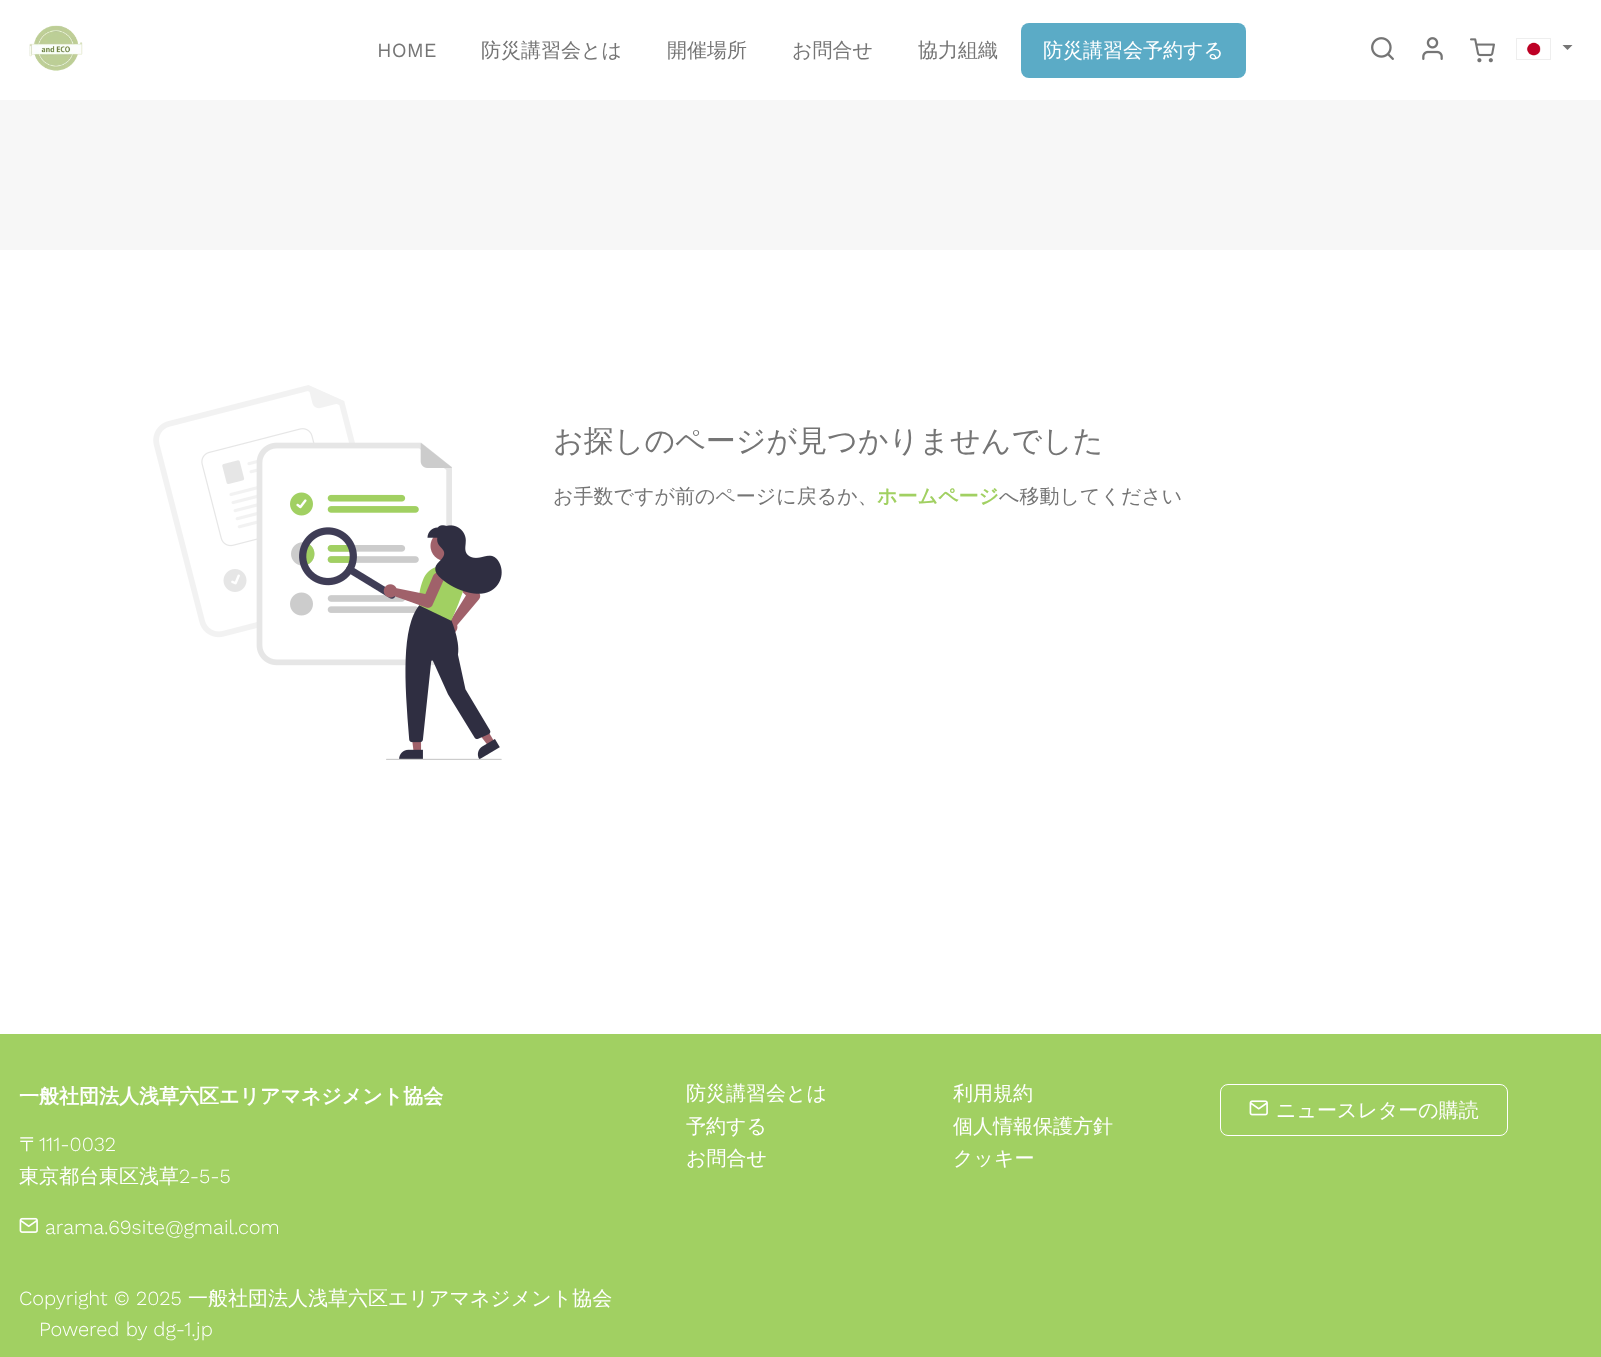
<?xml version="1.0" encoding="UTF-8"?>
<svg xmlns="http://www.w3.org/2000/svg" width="1601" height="1357">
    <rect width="100%" height="100%" fill="#FFFFFF"/>
    <image x="29" y="25" width="54" height="46" href="img_01.png"/>
    <text x="377" y="57" font-family="Work Sans" font-size="20" fill="#757575">HOME</text>
    <text x="481" y="57" font-family="WenQuanYi Zen Hei" font-size="20" font-weight="500" fill="#757575">防災講習会とは</text>
    <text x="667" y="57" font-family="WenQuanYi Zen Hei" font-size="20" font-weight="500" fill="#757575">開催場所</text>
    <text x="792" y="57" font-family="WenQuanYi Zen Hei" font-size="20" font-weight="500" fill="#757575">お問合せ</text>
    <text x="918" y="57" font-family="WenQuanYi Zen Hei" font-size="20" font-weight="500" fill="#757575">協力組織</text>
    <rect x="1021" y="23" width="225" height="55" rx="8" fill="#5BABC6"/>
    <text x="1043" y="57" font-family="WenQuanYi Zen Hei" font-size="20" font-weight="500" fill="#FFFFFF">防災講習会予約する</text>
    <image x="1371" y="37" width="23" height="23" href="img_02.png"/>
    <image x="1422" y="37" width="21" height="23" href="img_03.png"/>
    <image x="1470" y="38" width="25" height="25" href="img_04.png"/>
    <rect x="1516.5" y="38.5" width="34" height="21" fill="none" stroke="#EEEEEE"/>
    <image x="1526" y="42" width="15" height="14" href="img_05.png"/>
    <path d="M 1562.5 45 H 1572.5 L 1567.5 50 Z" fill="#757575"/>
    <rect x="0" y="100" width="1601" height="150" fill="#F7F7F7"/>
    <image x="153" y="385" width="349" height="375" href="img_06.png"/>
    <text x="553" y="451" font-family="WenQuanYi Zen Hei" font-size="30" font-weight="500" fill="#757575">お探しのページが見つかりませんでした</text>
    <text x="553" y="503" font-family="WenQuanYi Zen Hei" font-size="20" font-weight="500" fill="#757575">お手数ですが前のページに戻るか、</text>
    <text x="877" y="503" font-family="WenQuanYi Zen Hei" font-size="20" font-weight="700" fill="#A1D062">ホームページ</text>
    <text x="999" y="503" font-family="WenQuanYi Zen Hei" font-size="20" font-weight="500" fill="#757575">へ移動してください</text>
    <rect x="0" y="1034" width="1601" height="323" fill="#A1D062"/>
    <text x="19" y="1103" font-family="WenQuanYi Zen Hei" font-size="20" font-weight="700" fill="#FFFFFF">一般社団法人浅草六区エリアマネジメント協会</text>
    <text x="19" y="1151" font-family="WenQuanYi Zen Hei" font-size="20" font-weight="500" fill="#FFFFFF">〒</text>
    <text x="39" y="1151" font-family="Work Sans" font-size="20" font-weight="300" fill="#FFFFFF">111-0032</text>
    <text x="19" y="1183" font-family="WenQuanYi Zen Hei" font-size="20" font-weight="500" fill="#FFFFFF">東京都台東区浅草</text>
    <text x="179" y="1183" font-family="Work Sans" font-size="20" font-weight="300" fill="#FFFFFF">2-5-5</text>
    <image x="19" y="1217" width="19" height="16" href="img_07.png"/>
    <text x="45" y="1234" font-family="Work Sans" font-size="20" font-weight="300" fill="#FFFFFF">arama.69site@gmail.com</text>
    <text x="19" y="1305" font-family="Work Sans" font-size="20" font-weight="300" fill="#FFFFFF">Copyright © 2025</text>
    <text x="188" y="1305" font-family="WenQuanYi Zen Hei" font-size="20" font-weight="500" fill="#FFFFFF">一般社団法人浅草六区エリアマネジメント協会</text>
    <text x="39" y="1336" font-family="Work Sans" font-size="20" font-weight="300" fill="#FFFFFF">Powered by dg-1.jp</text>
    <text font-family="WenQuanYi Zen Hei" font-size="20" font-weight="500" fill="#FFFFFF">
        <tspan x="686" y="1100">防災講習会とは</tspan>
        <tspan x="686" y="1133">予約する</tspan>
        <tspan x="686" y="1165">お問合せ</tspan>
    </text>
    <text font-family="WenQuanYi Zen Hei" font-size="20" font-weight="500" fill="#FFFFFF">
        <tspan x="953" y="1100">利用規約</tspan>
        <tspan x="953" y="1133">個人情報保護方針</tspan>
        <tspan x="953" y="1165">クッキー</tspan>
    </text>
    <rect x="1220.5" y="1084.5" width="287" height="51" rx="7.5" fill="none" stroke="#FFFFFF"/>
    <image x="1249" y="1100" width="19" height="16" href="img_08.png"/>
    <text x="1276" y="1117" font-family="WenQuanYi Zen Hei" font-size="20" font-weight="500" fill="#FFFFFF">ニュースレターの購読</text>
</svg>
